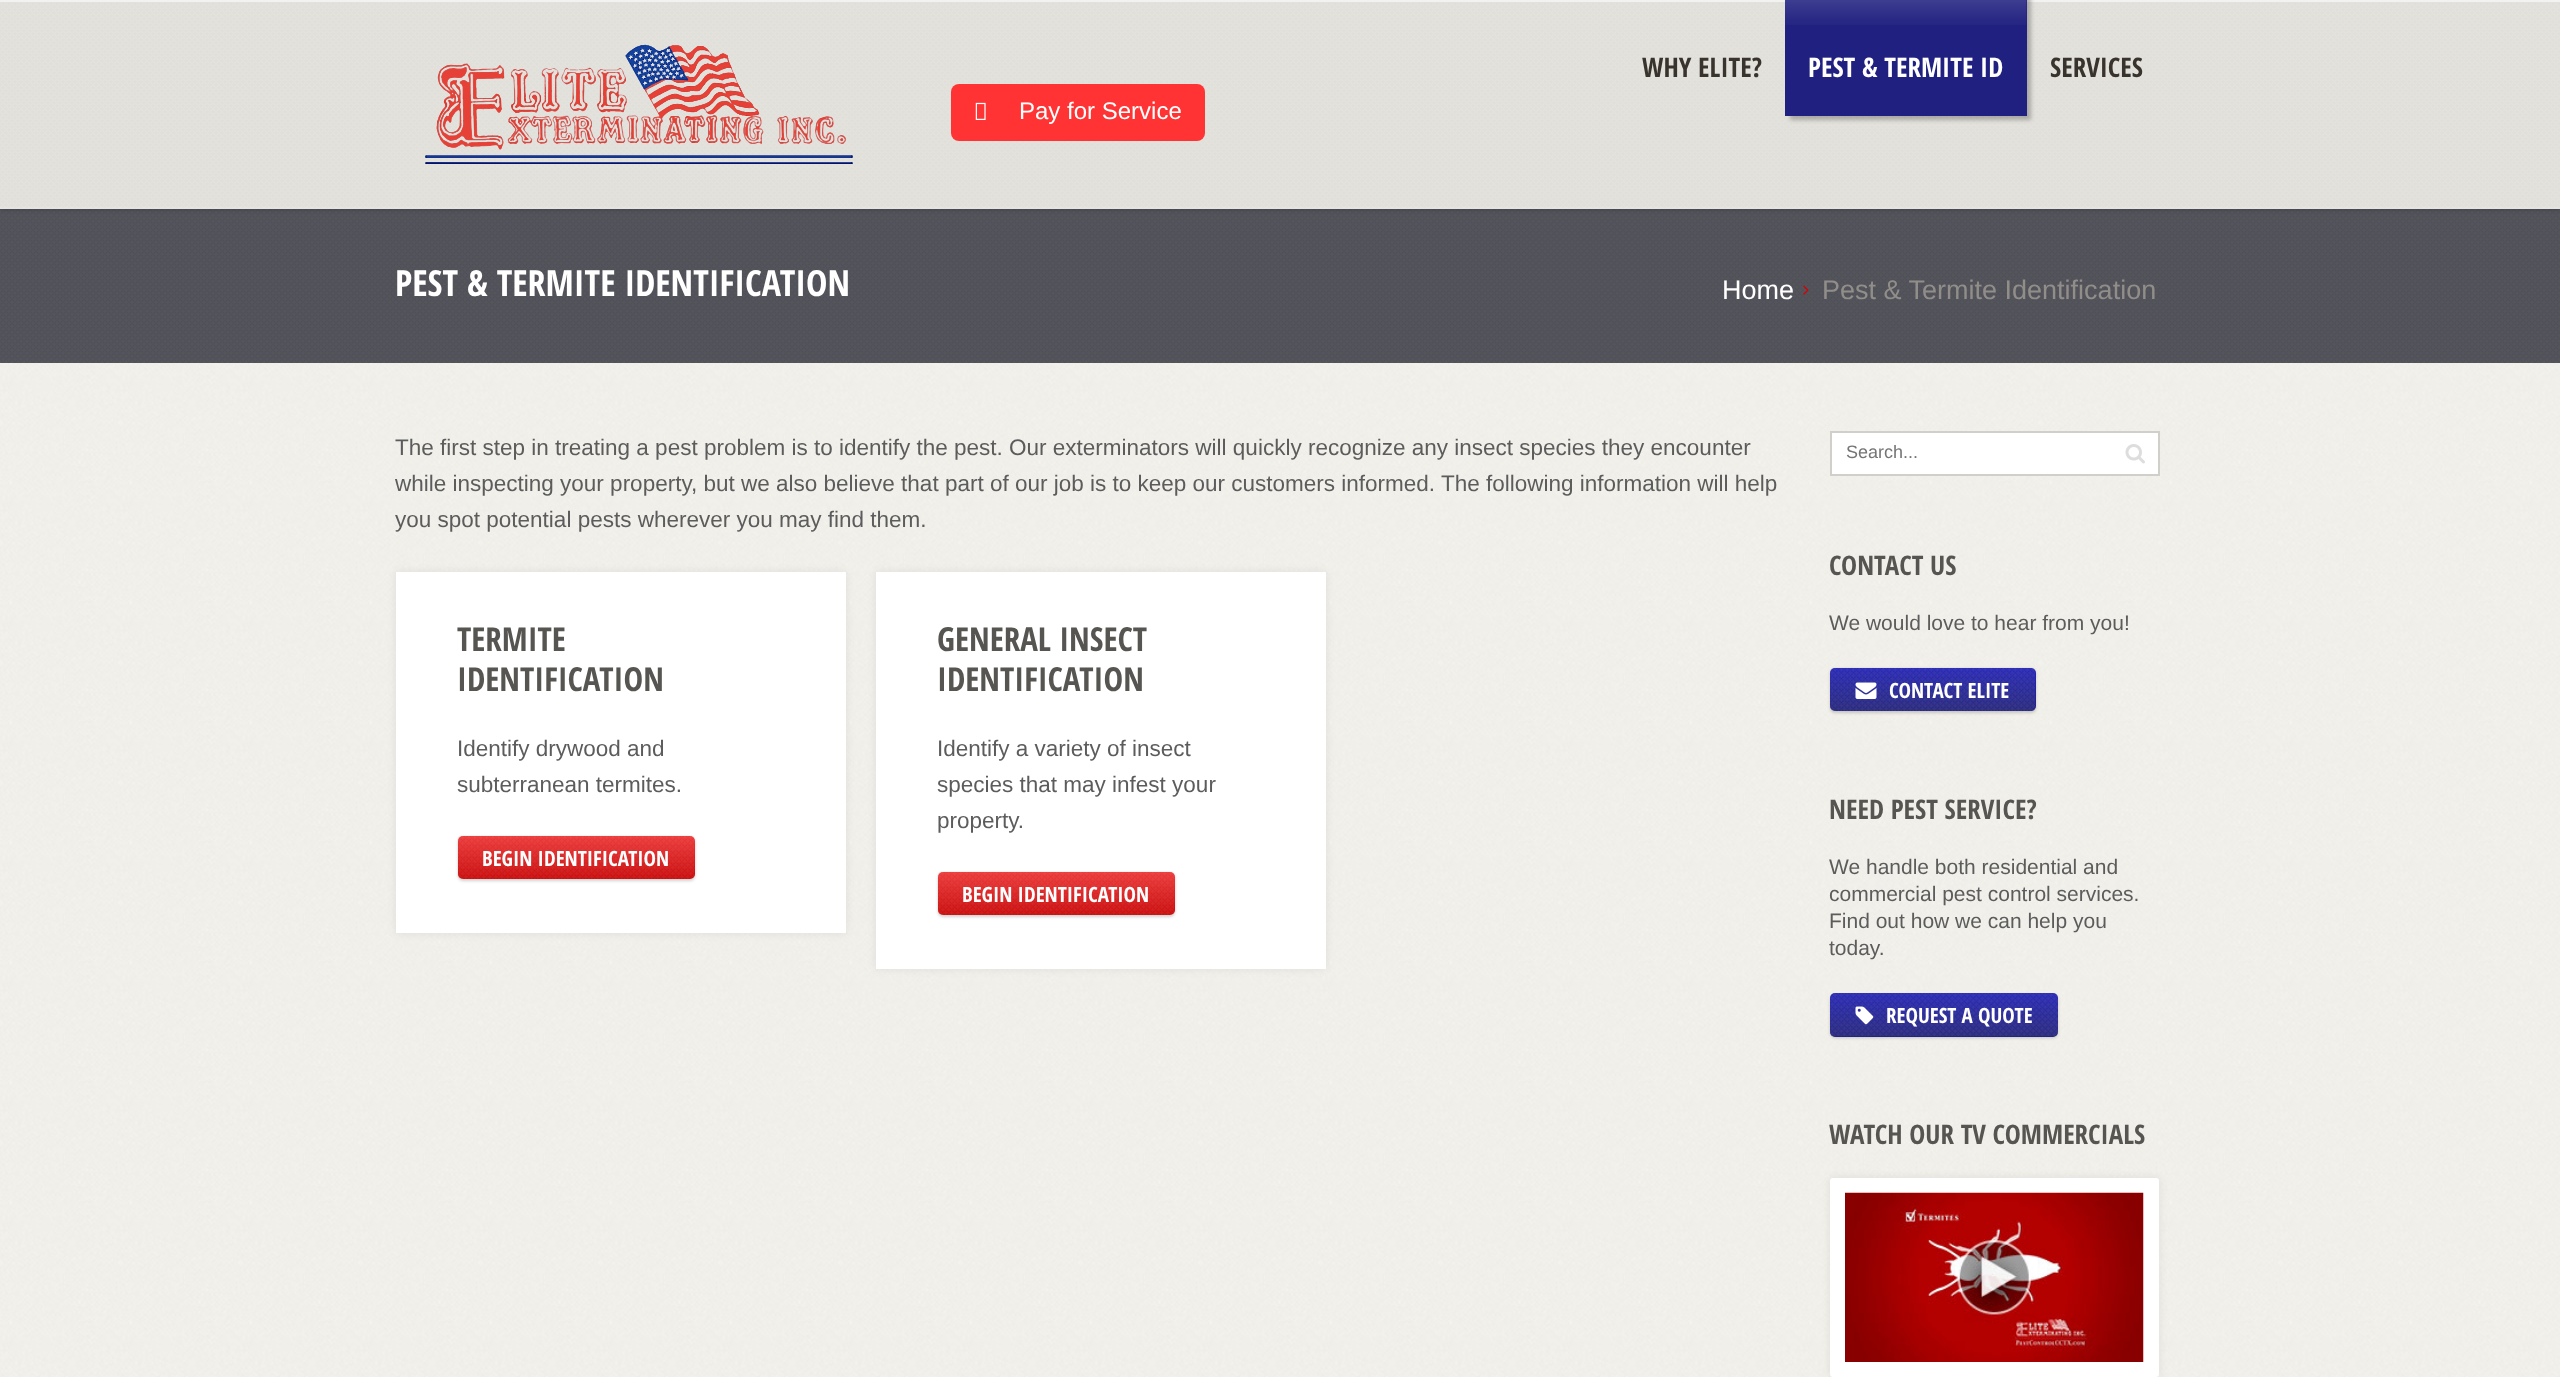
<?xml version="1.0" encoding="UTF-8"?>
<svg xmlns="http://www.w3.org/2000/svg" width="2560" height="1377">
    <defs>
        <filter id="blur1" x="-50%" y="-200%" width="200%" height="500%"><feGaussianBlur stdDeviation="2"/></filter>
        <filter id="blur2" x="-50%" y="-200%" width="200%" height="500%"><feGaussianBlur stdDeviation="4"/></filter>
        <filter id="blur3" x="-50%" y="-200%" width="200%" height="500%"><feGaussianBlur stdDeviation="1.5"/></filter>
        <linearGradient id="g1" gradientUnits="userSpaceOnUse" x1="576" y1="836" x2="576" y2="879"><stop offset="0" stop-color="#FF3333"/><stop offset="1" stop-color="#D80000"/></linearGradient>
        <linearGradient id="g2" gradientUnits="userSpaceOnUse" x1="1056" y1="872" x2="1056" y2="915"><stop offset="0" stop-color="#FF3333"/><stop offset="1" stop-color="#D80000"/></linearGradient>
        <linearGradient id="g3" gradientUnits="userSpaceOnUse" x1="1933" y1="668" x2="1933" y2="711"><stop offset="0" stop-color="#2020C0"/><stop offset="1" stop-color="#202080"/></linearGradient>
        <linearGradient id="g4" gradientUnits="userSpaceOnUse" x1="1944" y1="993" x2="1944" y2="1037"><stop offset="0" stop-color="#2020C0"/><stop offset="1" stop-color="#202080"/></linearGradient>
    </defs>
    <rect width="100%" height="100%" fill="#FFFFFF"/>
    <image x="0" y="363" width="2560" height="1014" href="img_01.png"/>
    <rect x="0" y="209" width="2560" height="154" fill="#4F4F57"/>
    <image x="0" y="209" width="2560" height="154" href="img_06.png"/>
    <rect x="0" y="2" width="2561" height="208" fill="#000000" fill-opacity="0.2" filter="url(#blur1)"/>
    <rect x="0" y="208" width="2560" height="1" fill="#DFDFE5"/>
    <image x="0" y="2" width="2560" height="207" href="img_02.png"/>
    <rect x="0" y="207" width="2560" height="2" fill="#FFFFFF" fill-opacity="0.15"/>
    <rect x="0" y="0" width="2560" height="2" fill="#F2F2F0"/>
    <image x="425" y="44" width="428" height="120" href="img_03.png"/>
    <text x="1642" y="77" font-family="Open Sans Condensed" font-size="27" font-weight="700" fill="#38332C">WHY ELITE?</text>
    <rect x="1790" y="-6" width="241" height="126" fill="#000000" fill-opacity="0.25" filter="url(#blur1)"/>
    <rect x="1785" y="0" width="242" height="116" fill="#202080"/>
    <image x="1785" y="0" width="242" height="25" href="img_04.png"/>
    <text x="1808" y="77" font-family="Open Sans Condensed" font-size="27" font-weight="700" fill="#FFFFFF">PEST &amp; TERMITE ID</text>
    <text x="2050" y="77" font-family="Open Sans Condensed" font-size="27" font-weight="700" fill="#38332C">SERVICES</text>
    <rect x="951" y="84" width="254" height="57" rx="8" fill="#FF3333"/>
    <image x="975" y="102" width="11" height="18" href="img_05.png"/>
    <text x="1019" y="119" font-family="Liberation Sans" font-size="24" fill="#FFFFFF">Pay for Service</text>
    <text x="395" y="296" font-family="Open Sans Condensed" font-size="36" font-weight="700" fill="#FFFFFF">PEST &amp; TERMITE IDENTIFICATION</text>
    <text x="1722" y="299" font-family="Liberation Sans" font-size="27" fill="#FFFFFF">Home</text>
    <image x="1803" y="285" width="6" height="10" href="img_07.png"/>
    <text x="1822" y="299" font-family="Liberation Sans" font-size="27" fill="#918E8A">Pest &amp; Termite Identification</text>
    <text font-family="Liberation Sans" font-size="22.5" fill="#5C5C5C">
        <tspan x="395" y="455">The first step in treating a pest problem is to identify the pest. Our exterminators will quickly recognize any insect species they encounter</tspan>
        <tspan x="395" y="491">while inspecting your property, but we also believe that part of our job is to keep our customers informed. The following information will help</tspan>
        <tspan x="395" y="527">you spot potential pests wherever you may find them.</tspan>
    </text>
    <rect x="396" y="572" width="450" height="361" fill="#000000" fill-opacity="0.08" filter="url(#blur2)"/>
    <rect x="396" y="572" width="450" height="361" fill="#FFFFFF"/>
    <text font-family="Open Sans Condensed" font-size="33" font-weight="700" fill="#565551">
        <tspan x="457" y="651">TERMITE</tspan>
        <tspan x="457" y="691">IDENTIFICATION</tspan>
    </text>
    <text font-family="Liberation Sans" font-size="22.5" fill="#5C5C5C">
        <tspan x="457" y="756">Identify drywood and</tspan>
        <tspan x="457" y="792">subterranean termites.</tspan>
    </text>
    <rect x="458" y="837" width="237" height="44" rx="5" fill="#000000" fill-opacity="0.18" filter="url(#blur3)"/>
    <rect x="458" y="836" width="237" height="43" rx="5" fill="url(#g1)"/>
    <image x="457" y="835" width="238" height="44" href="img_08.png"/>
    <text x="482" y="866" font-family="Open Sans Condensed" font-size="21" font-weight="700" fill="#FFFFFF">BEGIN IDENTIFICATION</text>
    <rect x="876" y="572" width="450" height="397" fill="#000000" fill-opacity="0.08" filter="url(#blur2)"/>
    <rect x="876" y="572" width="450" height="397" fill="#FFFFFF"/>
    <text font-family="Open Sans Condensed" font-size="33" font-weight="700" fill="#565551">
        <tspan x="937" y="651">GENERAL INSECT</tspan>
        <tspan x="937" y="691">IDENTIFICATION</tspan>
    </text>
    <text font-family="Liberation Sans" font-size="22.5" fill="#5C5C5C">
        <tspan x="937" y="756">Identify a variety of insect</tspan>
        <tspan x="937" y="792">species that may infest your</tspan>
        <tspan x="937" y="828">property.</tspan>
    </text>
    <rect x="938" y="873" width="237" height="44" rx="5" fill="#000000" fill-opacity="0.18" filter="url(#blur3)"/>
    <rect x="938" y="872" width="237" height="43" rx="5" fill="url(#g2)"/>
    <image x="937" y="871" width="238" height="44" href="img_09.png"/>
    <text x="962" y="902" font-family="Open Sans Condensed" font-size="21" font-weight="700" fill="#FFFFFF">BEGIN IDENTIFICATION</text>
    <rect x="1831" y="432" width="328" height="43" fill="#FFFFFF" stroke="#D0CFCA" stroke-width="2"/>
    <text x="1846" y="458" font-family="Liberation Sans" font-size="18" fill="#757575">Search...</text>
    <image x="2125" y="444" width="20" height="20" href="img_10.png"/>
    <text x="1829" y="575" font-family="Open Sans Condensed" font-size="27" font-weight="700" fill="#565551">CONTACT US</text>
    <text x="1829" y="630" font-family="Liberation Sans" font-size="21" fill="#5C5C5C">We would love to hear from you!</text>
    <rect x="1830" y="669" width="206" height="44" rx="5" fill="#000000" fill-opacity="0.18" filter="url(#blur3)"/>
    <rect x="1830" y="668" width="206" height="43" rx="5" fill="url(#g3)"/>
    <image x="1830" y="667" width="206" height="44" href="img_11.png"/>
    <image x="1855" y="682" width="22" height="17" href="img_12.png"/>
    <text x="1889" y="698" font-family="Open Sans Condensed" font-size="21" font-weight="700" fill="#FFFFFF">CONTACT ELITE</text>
    <text x="1829" y="819" font-family="Open Sans Condensed" font-size="27" font-weight="700" fill="#565551">NEED PEST SERVICE?</text>
    <text font-family="Liberation Sans" font-size="21" fill="#5C5C5C">
        <tspan x="1829" y="874">We handle both residential and</tspan>
        <tspan x="1829" y="901">commercial pest control services.</tspan>
        <tspan x="1829" y="928">Find out how we can help you</tspan>
        <tspan x="1829" y="955">today.</tspan>
    </text>
    <rect x="1830" y="995" width="228" height="43" rx="5" fill="#000000" fill-opacity="0.18" filter="url(#blur3)"/>
    <rect x="1830" y="993" width="228" height="44" rx="5" fill="url(#g4)"/>
    <image x="1830" y="993" width="228" height="44" href="img_13.png"/>
    <image x="1855" y="1006" width="19" height="19" href="img_14.png"/>
    <text x="1886" y="1023" font-family="Open Sans Condensed" font-size="21" font-weight="700" fill="#FFFFFF">REQUEST A QUOTE</text>
    <text x="1829" y="1144" font-family="Open Sans Condensed" font-size="27" font-weight="700" fill="#565551">WATCH OUR TV COMMERCIALS</text>
    <rect x="1830" y="1178" width="329" height="199" rx="3" fill="#000000" fill-opacity="0.08" filter="url(#blur2)"/>
    <rect x="1831" y="1179" width="327" height="197" rx="2" fill="#FFFFFF" stroke="#FFFFFF" stroke-width="2"/>
    <image x="1845" y="1192" width="299" height="170" href="img_15.png"/>
</svg>
